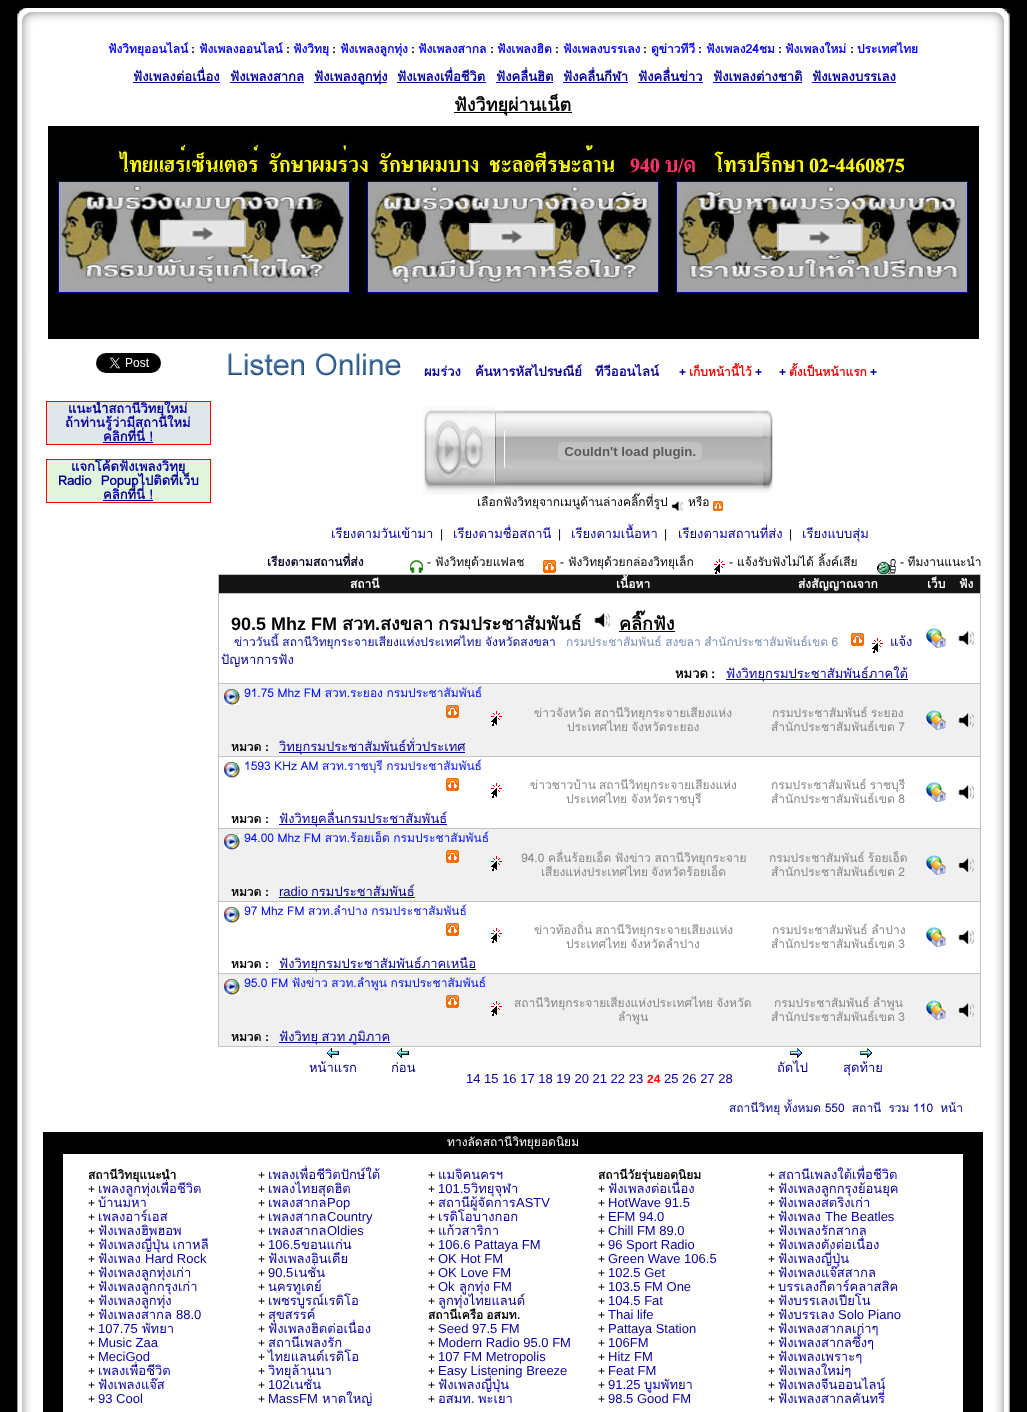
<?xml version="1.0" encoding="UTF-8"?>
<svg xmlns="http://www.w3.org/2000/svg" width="1027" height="1412">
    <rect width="100%" height="100%" fill="#000000"/>
    <image x="17" y="8" width="21" height="20" href="img_01.png"/>
    <image x="38" y="8" width="950" height="20" href="img_02.png"/>
    <image x="988" y="8" width="22" height="20" href="img_03.png"/>
    <image x="17" y="28" width="21" height="42" href="img_04.png"/>
    <rect x="38" y="28" width="950" height="325" fill="#FFFFFF"/>
    <text x="108" y="53" font-family="Loma" font-size="12" font-weight="700" fill="#0000FF">ฟังวิทยุออนไลน์</text>
    <text x="191" y="53" font-family="Liberation Sans" font-size="12" font-weight="700" fill="#000000">:</text>
    <text x="199" y="53" font-family="Loma" font-size="12" font-weight="700" fill="#0000FF">ฟังเพลงออนไลน์</text>
    <text x="286" y="53" font-family="Liberation Sans" font-size="12" font-weight="700" fill="#000000">:</text>
    <text x="293" y="53" font-family="Loma" font-size="12" font-weight="700" fill="#0000FF">ฟังวิทยุ</text>
    <text x="332" y="53" font-family="Liberation Sans" font-size="12" font-weight="700" fill="#000000">:</text>
    <text x="340" y="53" font-family="Loma" font-size="12" font-weight="700" fill="#0000FF">ฟังเพลงลูกทุ่ง</text>
    <text x="411" y="53" font-family="Liberation Sans" font-size="12" font-weight="700" fill="#000000">:</text>
    <text x="418" y="53" font-family="Loma" font-size="12" font-weight="700" fill="#0000FF">ฟังเพลงสากล</text>
    <text x="490" y="53" font-family="Liberation Sans" font-size="12" font-weight="700" fill="#000000">:</text>
    <text x="497" y="53" font-family="Loma" font-size="12" font-weight="700" fill="#0000FF">ฟังเพลงฮิต</text>
    <text x="555" y="53" font-family="Liberation Sans" font-size="12" font-weight="700" fill="#000000">:</text>
    <text x="563" y="53" font-family="Loma" font-size="12" font-weight="700" fill="#0000FF">ฟังเพลงบรรเลง</text>
    <text x="643" y="53" font-family="Liberation Sans" font-size="12" font-weight="700" fill="#000000">:</text>
    <text x="651" y="53" font-family="Loma" font-size="12" font-weight="700" fill="#0000FF">ดูข่าวทีวี</text>
    <text x="698" y="53" font-family="Liberation Sans" font-size="12" font-weight="700" fill="#000000">:</text>
    <text x="706" y="53" font-family="Loma" font-size="12" font-weight="700" fill="#0000FF">ฟังเพลง24ชม</text>
    <text x="778" y="53" font-family="Liberation Sans" font-size="12" font-weight="700" fill="#000000">:</text>
    <text x="785" y="53" font-family="Loma" font-size="12" font-weight="700" fill="#0000FF">ฟังเพลงใหม่</text>
    <text x="857" y="53" font-family="Loma" font-size="12" font-weight="700" fill="#0000FF">ประเทศไทย</text>
    <text x="850" y="53" font-family="Liberation Sans" font-size="12" font-weight="700" fill="#000000">:</text>
    <image x="988" y="28" width="22" height="42" href="img_05.png"/>
    <image x="17" y="70" width="21" height="283" href="img_06.png"/>
    <text x="133" y="81" font-family="Loma" font-size="13" font-weight="700" fill="#000099">ฟังเพลงต่อเนื่อง</text>
    <rect x="133" y="82" width="87" height="1" fill="#070099"/>
    <text x="230" y="81" font-family="Loma" font-size="13" font-weight="700" fill="#000099">ฟังเพลงสากล</text>
    <rect x="230" y="82" width="74" height="1" fill="#070099"/>
    <rect x="314" y="82" width="73" height="1" fill="#070099"/>
    <text x="314" y="81" font-family="Loma" font-size="13" font-weight="700" fill="#000099">ฟังเพลงลูกทุ่ง</text>
    <text x="397" y="81" font-family="Loma" font-size="13" font-weight="700" fill="#000099">ฟังเพลงเพื่อชีวิต</text>
    <rect x="397" y="82" width="89" height="1" fill="#070099"/>
    <text x="496" y="81" font-family="Loma" font-size="13" font-weight="700" fill="#000099">ฟังคลื่นฮิต</text>
    <rect x="496" y="82" width="57" height="1" fill="#070099"/>
    <text x="563" y="81" font-family="Loma" font-size="13" font-weight="700" fill="#000099">ฟังคลื่นกีฬา</text>
    <rect x="563" y="82" width="65" height="1" fill="#070099"/>
    <text x="638" y="81" font-family="Loma" font-size="13" font-weight="700" fill="#000099">ฟังคลื่นข่าว</text>
    <rect x="638" y="82" width="65" height="1" fill="#070099"/>
    <text x="713" y="81" font-family="Loma" font-size="13" font-weight="700" fill="#000099">ฟังเพลงต่างชาติ</text>
    <rect x="713" y="82" width="89" height="1" fill="#070099"/>
    <text x="812" y="81" font-family="Loma" font-size="13" font-weight="700" fill="#000099">ฟังเพลงบรรเลง</text>
    <rect x="812" y="82" width="84" height="1" fill="#070099"/>
    <rect x="454" y="112" width="118" height="1" fill="#000000"/>
    <text x="454" y="111" font-family="Loma" font-size="18" font-weight="700" fill="#000000">ฟังวิทยุผ่านเน็ต</text>
    <rect x="48" y="126" width="931" height="213" fill="#000000"/>
    <image x="117" y="141" width="792" height="32" href="img_07.png"/>
    <rect x="58.5" y="181.5" width="291" height="111" fill="none" stroke="#070099"/>
    <rect x="367.5" y="181.5" width="291" height="111" fill="none" stroke="#070099"/>
    <rect x="676.5" y="181.5" width="291" height="111" fill="none" stroke="#070099"/>
    <image x="59" y="182" width="290" height="110" href="img_08.png"/>
    <image x="368" y="182" width="290" height="110" href="img_09.png"/>
    <image x="677" y="182" width="290" height="110" href="img_10.png"/>
    <image x="988" y="70" width="22" height="283" href="img_11.png"/>
    <rect x="31" y="353" width="964" height="1059" fill="#FFFFFF"/>
    <image x="17" y="353" width="14" height="1059" href="img_12.png"/>
    <image x="96" y="353" width="65" height="20" href="img_13.png"/>
    <rect x="46" y="401" width="165" height="44" fill="#FF0000"/>
    <rect x="47" y="402" width="163" height="42" fill="#DFE7EB"/>
    <text x="68" y="413" font-family="Loma" font-size="13" font-weight="700" fill="#070099">แนะนำสถานีวิทยุใหม่</text>
    <text x="65" y="427" font-family="Loma" font-size="13" font-weight="700" fill="#070099">ถ้าท่านรู้ว่ามีสถานีใหม่</text>
    <text x="103" y="441" font-family="Loma" font-size="13" font-weight="700" fill="#070099">คลิกที่นี่ !</text>
    <rect x="103" y="442" width="50" height="1" fill="#070099"/>
    <rect x="46" y="459" width="165" height="44" fill="#FF0000"/>
    <rect x="47" y="460" width="163" height="42" fill="#E0F5DC"/>
    <text x="71" y="471" font-family="Loma" font-size="13" font-weight="700" fill="#070099">แจกโค้ดฟังเพลงวิทยุ</text>
    <text x="58" y="485" word-spacing="5" font-family="Loma" font-size="13" font-weight="700" fill="#070099">Radio Popupไปติดที่เว็บ</text>
    <text x="103" y="499" font-family="Loma" font-size="13" font-weight="700" fill="#070099">คลิกที่นี่ !</text>
    <rect x="103" y="500" width="50" height="1" fill="#070099"/>
    <image x="228" y="353" width="173" height="23" href="img_14.png"/>
    <text x="424" y="376" font-family="Loma" font-size="13" font-weight="700" fill="#070099">ผมร่วง</text>
    <text x="475" y="376" font-family="Loma" font-size="13" font-weight="700" fill="#070099">ค้นหารหัสไปรษณีย์</text>
    <text x="595" y="376" font-family="Loma" font-size="13" font-weight="700" fill="#070099">ทีวีออนไลน์</text>
    <text x="679" y="376" font-family="Liberation Sans" font-size="12" font-weight="700" fill="#000099">+</text>
    <text x="689" y="376" font-family="Loma" font-size="12" font-weight="700" fill="#F50000">เก็บหน้านี้ไว้</text>
    <text x="755" y="376" font-family="Liberation Sans" font-size="12" font-weight="700" fill="#000099">+</text>
    <text x="779" y="376" font-family="Liberation Sans" font-size="12" font-weight="700" fill="#000099">+</text>
    <text x="789" y="376" font-family="Loma" font-size="12" font-weight="700" fill="#F50000">ตั้งเป็นหน้าแรก</text>
    <text x="870" y="376" font-family="Liberation Sans" font-size="12" font-weight="700" fill="#000099">+</text>
    <image x="423" y="407" width="41" height="88" href="img_15.png"/>
    <image x="464" y="407" width="31" height="88" href="img_16.png"/>
    <image x="495" y="410" width="10" height="83" href="img_17.png"/>
    <image x="505" y="410" width="250" height="83" href="img_18.png"/>
    <image x="558" y="442" width="144" height="18" href="img_19.png"/>
    <image x="755" y="410" width="8" height="83" href="img_20.png"/>
    <image x="763" y="410" width="10" height="83" href="img_21.png"/>
    <text x="477" y="506" font-family="Loma" font-size="12" fill="#000000">เลือกฟังวิทยุจากเมนูด้านล่างคลิ๊กที่รูป</text>
    <image x="671" y="501" width="12" height="10" href="img_22.png"/>
    <text x="688" y="506" font-family="Loma" font-size="12" fill="#000000">หรือ</text>
    <image x="713" y="501" width="10" height="10" href="img_23.png"/>
    <text x="331" y="538" font-family="Loma" font-size="13" fill="#070099">เรียงตามวันเข้ามา</text>
    <text x="440" y="538" font-family="Liberation Sans" font-size="12" fill="#000000">|</text>
    <text x="453" y="538" font-family="Loma" font-size="13" fill="#070099">เรียงตามชื่อสถานี</text>
    <text x="558" y="538" font-family="Liberation Sans" font-size="12" fill="#000000">|</text>
    <text x="571" y="538" font-family="Loma" font-size="13" fill="#070099">เรียงตามเนื้อหา</text>
    <text x="664" y="538" font-family="Liberation Sans" font-size="12" fill="#000000">|</text>
    <text x="678" y="538" font-family="Loma" font-size="13" fill="#070099">เรียงตามสถานที่ส่ง</text>
    <text x="789" y="538" font-family="Liberation Sans" font-size="12" fill="#000000">|</text>
    <text x="802" y="538" font-family="Loma" font-size="13" fill="#070099">เรียงแบบสุ่ม</text>
    <text x="267" y="566" font-family="Loma" font-size="12" font-weight="700" fill="#000022">เรียงตามสถานที่ส่ง</text>
    <image x="410" y="560" width="13" height="13" href="img_24.png"/>
    <text x="427" y="566" font-family="Loma" font-size="12" fill="#000009">- ฟังวิทยุด้วยแฟลช</text>
    <image x="543" y="560" width="13" height="13" href="img_25.png"/>
    <text x="560" y="566" font-family="Loma" font-size="12" fill="#000009">- ฟังวิทยุด้วยกล่องวิทยุเล็ก</text>
    <image x="714" y="559" width="11" height="15" href="img_26.png"/>
    <text x="729" y="566" font-family="Loma" font-size="12" fill="#000009">- แจ้งรับฟังไม่ได้ ลิ้งค์เสีย</text>
    <image x="877" y="559" width="19" height="15" href="img_27.png"/>
    <text x="900" y="566" word-spacing="-0.5" font-family="Loma" font-size="12" fill="#000009">- ทีมงานแนะนำ</text>
    <rect x="218" y="574" width="763" height="473" fill="#C2C2C2"/>
    <rect x="219" y="575" width="761" height="18" fill="#141414"/>
    <text x="350" y="588" font-family="Loma" font-size="12" font-weight="700" fill="#FFFFFF">สถานี</text>
    <text x="616" y="588" font-family="Loma" font-size="12" font-weight="700" fill="#FFFFFF">เนื้อหา</text>
    <text x="798" y="588" font-family="Loma" font-size="12" font-weight="700" fill="#FFFFFF">ส่งสัญญาณจาก</text>
    <text x="927" y="588" font-family="Loma" font-size="12" font-weight="700" fill="#FFFFFF">เว็บ</text>
    <text x="959" y="588" font-family="Loma" font-size="12" font-weight="700" fill="#FFFFFF">ฟัง</text>
    <rect x="219" y="594" width="761" height="89" fill="#FFFFFF"/>
    <text x="231" y="630" font-family="Liberation Sans" font-size="18" font-weight="700" fill="#000000">90.5 Mhz FM</text>
    <text x="342" y="630" font-family="Loma" font-size="18" font-weight="700" fill="#000000">สวท</text>
    <text x="375" y="630" font-family="Liberation Sans" font-size="18" font-weight="700" fill="#000000">.</text>
    <text x="380" y="630" font-family="Loma" font-size="18" font-weight="700" fill="#000000">สงขลา</text>
    <text x="438" y="630" font-family="Loma" font-size="18" font-weight="700" fill="#000000">กรมประชาสัมพันธ์</text>
    <image x="594" y="613" width="16" height="14" href="img_28.png"/>
    <text x="619" y="630" font-family="Loma" font-size="18" font-weight="700" fill="#000000">คลิ๊กฟัง</text>
    <rect x="619" y="631" width="56" height="1" fill="#000000"/>
    <text x="234" y="646" word-spacing="-0.5" font-family="Loma" font-size="12" fill="#000899">ข่าววันนี้ สถานีวิทยุกระจายเสียงแห่งประเทศไทย จังหวัดสงขลา</text>
    <text x="566" y="646" word-spacing="-0.5" font-family="Loma" font-size="12" fill="#798FB8">กรมประชาสัมพันธ์ สงขลา สำนักประชาสัมพันธ์เขต 6</text>
    <image x="851" y="633" width="13" height="13" href="img_25.png"/>
    <image x="872" y="638" width="11" height="15" href="img_26.png"/>
    <text x="890" y="646" font-family="Loma" font-size="13" fill="#070099">แจ้ง</text>
    <text x="221" y="664" font-family="Loma" font-size="13" fill="#070099">ปัญหาการฟัง</text>
    <text x="675" y="678" font-family="Loma" font-size="13" font-weight="700" fill="#000000">หมวด</text>
    <text x="711" y="678" font-family="Liberation Sans" font-size="13" font-weight="700" fill="#000000">:</text>
    <rect x="726" y="679" width="182" height="1" fill="#070099"/>
    <text x="726" y="678" font-family="Loma" font-size="13" fill="#070099">ฟังวิทยุกรมประชาสัมพันธ์ภาคใต้</text>
    <image x="926" y="628" width="20" height="20" href="img_29.png"/>
    <image x="958" y="631" width="16" height="14" href="img_28.png"/>
    <rect x="219" y="684" width="761" height="72" fill="#F0F0F0"/>
    <image x="224" y="689" width="16" height="16" href="img_30.png"/>
    <text x="244" y="697" word-spacing="-0.5" font-family="Loma" font-size="12" fill="#000FF6">91.75 Mhz FM สวท.ระยอง กรมประชาสัมพันธ์</text>
    <image x="446" y="705" width="13" height="13" href="img_25.png"/>
    <image x="491" y="711" width="11" height="15" href="img_31.png"/>
    <text x="231" y="751" font-family="Loma" font-size="12" font-weight="700" fill="#000000">หมวด</text>
    <text x="265" y="751" font-family="Liberation Sans" font-size="12" font-weight="700" fill="#000000">:</text>
    <rect x="279" y="752" width="186" height="1" fill="#070099"/>
    <text x="279" y="751" font-family="Loma" font-size="13" fill="#070099">วิทยุกรมประชาสัมพันธ์ทั่วประเทศ</text>
    <text x="534" y="717" word-spacing="-1" font-family="Loma" font-size="12" fill="#878787">ข่าวจังหวัด สถานีวิทยุกระจายเสียงแห่ง</text>
    <text x="567" y="731" word-spacing="-1" font-family="Loma" font-size="12" fill="#878787">ประเทศไทย จังหวัดระยอง</text>
    <text x="772" y="717" word-spacing="-1" font-family="Loma" font-size="12" fill="#878787">กรมประชาสัมพันธ์ ระยอง</text>
    <text x="771" y="731" word-spacing="-0.5" font-family="Loma" font-size="12" fill="#878787">สำนักประชาสัมพันธ์เขต 7</text>
    <image x="926" y="710" width="20" height="20" href="img_32.png"/>
    <image x="958" y="713" width="16" height="14" href="img_33.png"/>
    <rect x="219" y="757" width="761" height="71" fill="#FFFFFF"/>
    <image x="224" y="762" width="16" height="16" href="img_30.png"/>
    <text x="244" y="770" word-spacing="-0.5" font-family="Loma" font-size="12" fill="#000FF6">1593 KHz AM สวท.ราชบุรี กรมประชาสัมพันธ์</text>
    <image x="446" y="778" width="13" height="13" href="img_25.png"/>
    <image x="491" y="783" width="11" height="15" href="img_26.png"/>
    <text x="231" y="823" font-family="Loma" font-size="12" font-weight="700" fill="#000000">หมวด</text>
    <text x="265" y="823" font-family="Liberation Sans" font-size="12" font-weight="700" fill="#000000">:</text>
    <rect x="279" y="824" width="168" height="1" fill="#070099"/>
    <text x="279" y="823" font-family="Loma" font-size="13" fill="#070099">ฟังวิทยุคลื่นกรมประชาสัมพันธ์</text>
    <text x="530" y="789" word-spacing="-1" font-family="Loma" font-size="12" fill="#878787">ข่าวชาวบ้าน สถานีวิทยุกระจายเสียงแห่ง</text>
    <text x="566" y="803" word-spacing="-0.5" font-family="Loma" font-size="12" fill="#878787">ประเทศไทย จังหวัดราชบุรี</text>
    <text font-family="Loma" font-size="12" fill="#878787">
        <tspan x="771" y="789" word-spacing="-1">กรมประชาสัมพันธ์ ราชบุรี</tspan>
        <tspan x="771" y="803" word-spacing="-0.5">สำนักประชาสัมพันธ์เขต 8</tspan>
    </text>
    <image x="926" y="782" width="20" height="20" href="img_29.png"/>
    <image x="958" y="785" width="16" height="14" href="img_28.png"/>
    <rect x="219" y="829" width="761" height="72" fill="#F0F0F0"/>
    <image x="224" y="834" width="16" height="16" href="img_30.png"/>
    <text x="244" y="842" word-spacing="-0.5" font-family="Loma" font-size="12" fill="#000FF6">94.00 Mhz FM สวท.ร้อยเอ็ด กรมประชาสัมพันธ์</text>
    <image x="446" y="850" width="13" height="13" href="img_25.png"/>
    <image x="491" y="856" width="11" height="15" href="img_31.png"/>
    <text x="231" y="896" font-family="Loma" font-size="12" font-weight="700" fill="#000000">หมวด</text>
    <text x="265" y="896" font-family="Liberation Sans" font-size="12" font-weight="700" fill="#000000">:</text>
    <text x="279" y="896" font-family="Liberation Sans" font-size="13" fill="#070099">radio</text>
    <rect x="279" y="897" width="136" height="1" fill="#070099"/>
    <text x="311" y="896" font-family="Loma" font-size="13" fill="#070099">กรมประชาสัมพันธ์</text>
    <text x="521" y="862" word-spacing="-0.5" font-family="Loma" font-size="12" fill="#878787">94.0 คลื่นร้อยเอ็ด ฟังข่าว สถานีวิทยุกระจาย</text>
    <text x="541" y="876" word-spacing="-1" font-family="Loma" font-size="12" fill="#878787">เสียงแห่งประเทศไทย จังหวัดร้อยเอ็ด</text>
    <text x="769" y="862" word-spacing="-1" font-family="Loma" font-size="12" fill="#878787">กรมประชาสัมพันธ์ ร้อยเอ็ด</text>
    <text x="771" y="876" word-spacing="-0.5" font-family="Loma" font-size="12" fill="#878787">สำนักประชาสัมพันธ์เขต 2</text>
    <image x="926" y="855" width="20" height="20" href="img_32.png"/>
    <image x="958" y="858" width="16" height="14" href="img_33.png"/>
    <rect x="219" y="902" width="761" height="71" fill="#FFFFFF"/>
    <image x="224" y="907" width="16" height="16" href="img_30.png"/>
    <text x="244" y="915" word-spacing="-0.5" font-family="Loma" font-size="12" fill="#000FF6">97 Mhz FM สวท.ลำปาง กรมประชาสัมพันธ์</text>
    <image x="446" y="923" width="13" height="13" href="img_25.png"/>
    <image x="491" y="928" width="11" height="15" href="img_26.png"/>
    <text x="231" y="968" font-family="Loma" font-size="12" font-weight="700" fill="#000000">หมวด</text>
    <text x="265" y="968" font-family="Liberation Sans" font-size="12" font-weight="700" fill="#000000">:</text>
    <rect x="279" y="969" width="197" height="1" fill="#070099"/>
    <text x="279" y="968" font-family="Loma" font-size="13" fill="#070099">ฟังวิทยุกรมประชาสัมพันธ์ภาคเหนือ</text>
    <text x="534" y="934" word-spacing="-1" font-family="Loma" font-size="12" fill="#878787">ข่าวท้องถิ่น สถานีวิทยุกระจายเสียงแห่ง</text>
    <text x="566" y="948" word-spacing="-1" font-family="Loma" font-size="12" fill="#878787">ประเทศไทย จังหวัดลำปาง</text>
    <text x="772" y="934" word-spacing="-0.5" font-family="Loma" font-size="12" fill="#878787">กรมประชาสัมพันธ์ ลำปาง</text>
    <text x="771" y="948" word-spacing="-0.5" font-family="Loma" font-size="12" fill="#878787">สำนักประชาสัมพันธ์เขต 3</text>
    <image x="926" y="927" width="20" height="20" href="img_29.png"/>
    <image x="958" y="930" width="16" height="14" href="img_28.png"/>
    <rect x="219" y="974" width="761" height="72" fill="#F0F0F0"/>
    <image x="224" y="979" width="16" height="16" href="img_30.png"/>
    <text x="244" y="987" word-spacing="-0.5" font-family="Loma" font-size="12" fill="#000FF6">95.0 FM ฟังข่าว สวท.ลำพูน กรมประชาสัมพันธ์</text>
    <image x="446" y="995" width="13" height="13" href="img_25.png"/>
    <image x="491" y="1001" width="11" height="15" href="img_31.png"/>
    <text x="231" y="1041" font-family="Loma" font-size="12" font-weight="700" fill="#000000">หมวด</text>
    <text x="265" y="1041" font-family="Liberation Sans" font-size="12" font-weight="700" fill="#000000">:</text>
    <rect x="279" y="1042" width="111" height="1" fill="#070099"/>
    <text x="279" y="1041" word-spacing="-1" font-family="Loma" font-size="13" fill="#070099">ฟังวิทยุ สวท ภูมิภาค</text>
    <text x="514" y="1007" word-spacing="-1" font-family="Loma" font-size="12" fill="#878787">สถานีวิทยุกระจายเสียงแห่งประเทศไทย จังหวัด</text>
    <text x="618" y="1021" font-family="Loma" font-size="12" fill="#878787">ลำพูน</text>
    <text x="774" y="1007" word-spacing="-1" font-family="Loma" font-size="12" fill="#878787">กรมประชาสัมพันธ์ ลำพูน</text>
    <text x="771" y="1021" word-spacing="-0.5" font-family="Loma" font-size="12" fill="#878787">สำนักประชาสัมพันธ์เขต 3</text>
    <image x="926" y="1000" width="20" height="20" href="img_32.png"/>
    <image x="958" y="1003" width="16" height="14" href="img_33.png"/>
    <image x="327" y="1048" width="12" height="10" href="img_34.png"/>
    <text x="309" y="1072" font-family="Loma" font-size="13" fill="#070099">หน้าแรก</text>
    <image x="397" y="1048" width="12" height="10" href="img_34.png"/>
    <text x="391" y="1072" font-family="Loma" font-size="13" fill="#070099">ก่อน</text>
    <image x="790" y="1048" width="12" height="10" href="img_35.png"/>
    <text x="777" y="1072" font-family="Loma" font-size="13" fill="#070099">ถัดไป</text>
    <image x="860" y="1048" width="12" height="10" href="img_35.png"/>
    <text x="843" y="1072" font-family="Loma" font-size="13" fill="#070099">สุดท้าย</text>
    <text x="466" y="1083" font-family="Liberation Sans" font-size="13" fill="#070099">14 15 16 17 18 19 20 21 22 23</text>
    <text x="647" y="1083" font-family="Liberation Sans" font-size="12" font-weight="700" fill="#FF0000">24</text>
    <text x="664" y="1083" font-family="Liberation Sans" font-size="13" fill="#070099">25 26 27 28</text>
    <text x="729" y="1112" word-spacing="-0.5" font-family="Loma" font-size="12" fill="#000099" xml:space="preserve">สถานีวิทยุ ทั้งหมด 550  สถานี  รวม 110  หน้า</text>
    <rect x="43" y="1132" width="940" height="280" fill="#000000"/>
    <text x="447" y="1146" font-family="Loma" font-size="12" fill="#FFFFFF">ทางลัดสถานีวิทยุยอดนิยม</text>
    <rect x="63" y="1154" width="900" height="14" fill="#FFFFFF"/>
    <rect x="63" y="1168" width="900" height="244" fill="#FFFFFF"/>
    <text x="258" y="1179" font-family="Liberation Sans" font-size="12" fill="#000000">+</text>
    <text x="268" y="1179" font-family="Loma" font-size="13" fill="#070099">เพลงเพื่อชีวิตปักษ์ใต้</text>
    <text x="258" y="1193" font-family="Liberation Sans" font-size="12" fill="#000000">+</text>
    <text x="268" y="1193" font-family="Loma" font-size="13" fill="#070099">เพลงไทยสุดฮิต</text>
    <text x="258" y="1207" font-family="Liberation Sans" font-size="12" fill="#000000">+</text>
    <text x="268" y="1207" font-family="Loma" font-size="13" fill="#070099">เพลงสากล</text>
    <text x="327" y="1207" font-family="Liberation Sans" font-size="13" fill="#070099">Pop</text>
    <text x="258" y="1221" font-family="Liberation Sans" font-size="12" fill="#000000">+</text>
    <text x="268" y="1221" font-family="Loma" font-size="13" fill="#070099">เพลงสากล</text>
    <text x="327" y="1221" font-family="Liberation Sans" font-size="13" fill="#070099">Country</text>
    <text x="258" y="1235" font-family="Liberation Sans" font-size="12" fill="#000000">+</text>
    <text x="268" y="1235" font-family="Loma" font-size="13" fill="#070099">เพลงสากล</text>
    <text x="327" y="1235" font-family="Liberation Sans" font-size="13" fill="#070099">Oldies</text>
    <text x="258" y="1249" font-family="Liberation Sans" font-size="12" fill="#000000">+</text>
    <text x="268" y="1249" font-family="Liberation Sans" font-size="13" fill="#070099">106.5</text>
    <text x="301" y="1249" font-family="Loma" font-size="13" fill="#070099">ขอนแก่น</text>
    <text x="258" y="1263" font-family="Liberation Sans" font-size="12" fill="#000000">+</text>
    <text x="268" y="1263" font-family="Loma" font-size="13" fill="#070099">ฟังเพลงอินเดีย</text>
    <text x="258" y="1277" font-family="Liberation Sans" font-size="12" fill="#000000">+</text>
    <text x="268" y="1277" font-family="Liberation Sans" font-size="13" fill="#070099">90.5</text>
    <text x="294" y="1277" font-family="Loma" font-size="13" fill="#070099">เนชั่น</text>
    <text x="258" y="1291" font-family="Liberation Sans" font-size="12" fill="#000000">+</text>
    <text x="268" y="1291" font-family="Loma" font-size="13" fill="#070099">นครทูเดย์</text>
    <text x="258" y="1305" font-family="Liberation Sans" font-size="12" fill="#000000">+</text>
    <text x="268" y="1305" font-family="Loma" font-size="13" fill="#070099">เพชรบูรณ์เรดิโอ</text>
    <text x="258" y="1319" font-family="Liberation Sans" font-size="12" fill="#000000">+</text>
    <text x="268" y="1319" font-family="Loma" font-size="13" fill="#070099">สุขสรรค์</text>
    <text x="258" y="1333" font-family="Liberation Sans" font-size="12" fill="#000000">+</text>
    <text x="268" y="1333" font-family="Loma" font-size="13" fill="#070099">ฟังเพลงฮิตต่อเนื่อง</text>
    <text x="258" y="1347" font-family="Liberation Sans" font-size="12" fill="#000000">+</text>
    <text x="268" y="1347" font-family="Loma" font-size="13" fill="#070099">สถานีเพลงรัก</text>
    <text x="258" y="1361" font-family="Liberation Sans" font-size="12" fill="#000000">+</text>
    <text x="268" y="1361" font-family="Loma" font-size="13" fill="#070099">ไทยแลนด์เรดิโอ</text>
    <text x="258" y="1375" font-family="Liberation Sans" font-size="12" fill="#000000">+</text>
    <text x="268" y="1375" font-family="Loma" font-size="13" fill="#070099">วิทยุล้านนา</text>
    <text x="258" y="1389" font-family="Liberation Sans" font-size="12" fill="#000000">+</text>
    <text x="268" y="1389" font-family="Liberation Sans" font-size="13" fill="#070099">102</text>
    <text x="290" y="1389" font-family="Loma" font-size="13" fill="#070099">เนชั่น</text>
    <text x="258" y="1403" font-family="Liberation Sans" font-size="12" fill="#000000">+</text>
    <text x="268" y="1403" font-family="Liberation Sans" font-size="13" fill="#070099">MassFM</text>
    <text x="322" y="1403" font-family="Loma" font-size="13" fill="#070099">หาดใหญ่</text>
    <text x="768" y="1179" font-family="Liberation Sans" font-size="12" fill="#000000">+</text>
    <text x="778" y="1179" font-family="Loma" font-size="13" fill="#070099">สถานีเพลงใต้เพื่อชีวิต</text>
    <text x="768" y="1193" font-family="Liberation Sans" font-size="12" fill="#000000">+</text>
    <text x="778" y="1193" font-family="Loma" font-size="13" fill="#070099">ฟังเพลงลูกกรุงย้อนยุค</text>
    <text x="768" y="1207" font-family="Liberation Sans" font-size="12" fill="#000000">+</text>
    <text x="778" y="1207" font-family="Loma" font-size="13" fill="#070099">ฟังเพลงสตริงเก่า</text>
    <text x="768" y="1221" font-family="Liberation Sans" font-size="12" fill="#000000">+</text>
    <text x="778" y="1221" font-family="Loma" font-size="13" fill="#070099">ฟังเพลง</text>
    <text x="825" y="1221" font-family="Liberation Sans" font-size="13" fill="#070099">The Beatles</text>
    <text x="768" y="1235" font-family="Liberation Sans" font-size="12" fill="#000000">+</text>
    <text x="778" y="1235" font-family="Loma" font-size="13" fill="#070099">ฟังเพลงรักสากล</text>
    <text x="768" y="1249" font-family="Liberation Sans" font-size="12" fill="#000000">+</text>
    <text x="778" y="1249" font-family="Loma" font-size="13" fill="#070099">ฟังเพลงดังต่อเนื่อง</text>
    <text x="768" y="1263" font-family="Liberation Sans" font-size="12" fill="#000000">+</text>
    <text x="778" y="1263" font-family="Loma" font-size="13" fill="#070099">ฟังเพลงญี่ปุ่น</text>
    <text x="768" y="1277" font-family="Liberation Sans" font-size="12" fill="#000000">+</text>
    <text x="778" y="1277" font-family="Loma" font-size="13" fill="#070099">ฟังเพลงแจ๊สสากล</text>
    <text x="768" y="1291" font-family="Liberation Sans" font-size="12" fill="#000000">+</text>
    <text x="778" y="1291" font-family="Loma" font-size="13" fill="#070099">บรรเลงกีตาร์คลาสสิค</text>
    <text x="768" y="1305" font-family="Liberation Sans" font-size="12" fill="#000000">+</text>
    <text x="778" y="1305" font-family="Loma" font-size="13" fill="#070099">ฟังบรรเลงเปียโน</text>
    <text x="768" y="1319" font-family="Liberation Sans" font-size="12" fill="#000000">+</text>
    <text x="778" y="1319" font-family="Loma" font-size="13" fill="#070099">ฟังบรรเลง</text>
    <text x="838" y="1319" font-family="Liberation Sans" font-size="13" fill="#070099">Solo Piano</text>
    <text x="768" y="1333" font-family="Liberation Sans" font-size="12" fill="#000000">+</text>
    <text x="778" y="1333" font-family="Loma" font-size="13" fill="#070099">ฟังเพลงสากลเก่าๆ</text>
    <text x="768" y="1347" font-family="Liberation Sans" font-size="12" fill="#000000">+</text>
    <text x="778" y="1347" font-family="Loma" font-size="13" fill="#070099">ฟังเพลงสากลซึ้งๆ</text>
    <text x="768" y="1361" font-family="Liberation Sans" font-size="12" fill="#000000">+</text>
    <text x="778" y="1361" font-family="Loma" font-size="13" fill="#070099">ฟังเพลงเพราะๆ</text>
    <text x="768" y="1375" font-family="Liberation Sans" font-size="12" fill="#000000">+</text>
    <text x="778" y="1375" font-family="Loma" font-size="13" fill="#070099">ฟังเพลงใหม่ๆ</text>
    <text x="768" y="1389" font-family="Liberation Sans" font-size="12" fill="#000000">+</text>
    <text x="778" y="1389" font-family="Loma" font-size="13" fill="#070099">ฟังเพลงจีนออนไลน์</text>
    <text x="768" y="1403" font-family="Liberation Sans" font-size="12" fill="#000000">+</text>
    <text x="778" y="1403" font-family="Loma" font-size="13" fill="#070099">ฟังเพลงสากลคันทรี่</text>
    <text x="88" y="1179" font-family="Loma" font-size="12" font-weight="700" fill="#000000">สถานีวิทยุแนะนำ</text>
    <text x="88" y="1193" font-family="Liberation Sans" font-size="12" fill="#000000">+</text>
    <text x="98" y="1193" font-family="Loma" font-size="13" fill="#070099">เพลงลูกทุ่งเพื่อชีวิต</text>
    <text x="88" y="1207" font-family="Liberation Sans" font-size="12" fill="#000000">+</text>
    <text x="98" y="1207" font-family="Loma" font-size="13" fill="#070099">บ้านมหา</text>
    <text x="88" y="1221" font-family="Liberation Sans" font-size="12" fill="#000000">+</text>
    <text x="98" y="1221" font-family="Loma" font-size="13" fill="#070099">เพลงอาร์เอส</text>
    <text x="88" y="1235" font-family="Liberation Sans" font-size="12" fill="#000000">+</text>
    <text x="98" y="1235" font-family="Loma" font-size="13" fill="#070099">ฟังเพลงฮิพฮอพ</text>
    <text x="88" y="1249" font-family="Liberation Sans" font-size="12" fill="#000000">+</text>
    <text x="98" y="1249" word-spacing="-1" font-family="Loma" font-size="13" fill="#070099">ฟังเพลงญี่ปุ่น เกาหลี</text>
    <text x="88" y="1263" font-family="Liberation Sans" font-size="12" fill="#000000">+</text>
    <text x="98" y="1263" font-family="Loma" font-size="13" fill="#070099">ฟังเพลง</text>
    <text x="145" y="1263" font-family="Liberation Sans" font-size="13" fill="#070099">Hard Rock</text>
    <text x="88" y="1277" font-family="Liberation Sans" font-size="12" fill="#000000">+</text>
    <text x="98" y="1277" font-family="Loma" font-size="13" fill="#070099">ฟังเพลงลูกทุ่งเก่า</text>
    <text x="88" y="1291" font-family="Liberation Sans" font-size="12" fill="#000000">+</text>
    <text x="98" y="1291" font-family="Loma" font-size="13" fill="#070099">ฟังเพลงลูกกรุงเก่า</text>
    <text x="88" y="1305" font-family="Liberation Sans" font-size="12" fill="#000000">+</text>
    <text x="98" y="1305" font-family="Loma" font-size="13" fill="#070099">ฟังเพลงลูกทุ่ง</text>
    <text x="88" y="1319" font-family="Liberation Sans" font-size="12" fill="#000000">+</text>
    <text x="98" y="1319" font-family="Loma" font-size="13" fill="#070099">ฟังเพลงสากล</text>
    <text x="176" y="1319" font-family="Liberation Sans" font-size="13" fill="#070099">88.0</text>
    <text x="88" y="1333" font-family="Liberation Sans" font-size="12" fill="#000000">+</text>
    <text x="98" y="1333" font-family="Liberation Sans" font-size="13" fill="#070099">107.75</text>
    <text x="142" y="1333" font-family="Loma" font-size="13" fill="#070099">พัทยา</text>
    <text x="88" y="1347" font-family="Liberation Sans" font-size="12" fill="#000000">+</text>
    <text x="98" y="1347" font-family="Liberation Sans" font-size="13" fill="#070099">Music Zaa</text>
    <text x="88" y="1361" font-family="Liberation Sans" font-size="12" fill="#000000">+</text>
    <text x="98" y="1361" font-family="Liberation Sans" font-size="13" fill="#070099">MeciGod</text>
    <text x="88" y="1375" font-family="Liberation Sans" font-size="12" fill="#000000">+</text>
    <text x="98" y="1375" font-family="Loma" font-size="13" fill="#070099">เพลงเพื่อชีวิต</text>
    <text x="88" y="1389" font-family="Liberation Sans" font-size="12" fill="#000000">+</text>
    <text x="98" y="1389" font-family="Loma" font-size="13" fill="#070099">ฟังเพลงแจ๊ส</text>
    <text x="88" y="1403" font-family="Liberation Sans" font-size="12" fill="#000000">+</text>
    <text x="98" y="1403" font-family="Liberation Sans" font-size="13" fill="#070099">93 Cool</text>
    <text x="428" y="1179" font-family="Liberation Sans" font-size="12" fill="#000000">+</text>
    <text x="438" y="1179" font-family="Loma" font-size="13" fill="#070099">แมจิคนครฯ</text>
    <text x="428" y="1193" font-family="Liberation Sans" font-size="12" fill="#000000">+</text>
    <text x="438" y="1193" font-family="Liberation Sans" font-size="13" fill="#070099">101.5</text>
    <text x="471" y="1193" font-family="Loma" font-size="13" fill="#070099">วิทยุจุฬา</text>
    <text x="428" y="1207" font-family="Liberation Sans" font-size="12" fill="#000000">+</text>
    <text x="438" y="1207" font-family="Loma" font-size="13" fill="#070099">สถานีผู้จัดการ</text>
    <text x="516" y="1207" font-family="Liberation Sans" font-size="13" fill="#070099">ASTV</text>
    <text x="428" y="1221" font-family="Liberation Sans" font-size="12" fill="#000000">+</text>
    <text x="438" y="1221" font-family="Loma" font-size="13" fill="#070099">เรดิโอบางกอก</text>
    <text x="428" y="1235" font-family="Liberation Sans" font-size="12" fill="#000000">+</text>
    <text x="438" y="1235" font-family="Loma" font-size="13" fill="#070099">แก้วสาริกา</text>
    <text x="428" y="1249" font-family="Liberation Sans" font-size="12" fill="#000000">+</text>
    <text x="438" y="1249" font-family="Liberation Sans" font-size="13" fill="#070099">106.6 Pattaya FM</text>
    <text x="428" y="1263" font-family="Liberation Sans" font-size="12" fill="#000000">+</text>
    <text x="438" y="1263" font-family="Liberation Sans" font-size="13" fill="#070099">OK Hot FM</text>
    <text x="428" y="1277" font-family="Liberation Sans" font-size="12" fill="#000000">+</text>
    <text x="438" y="1277" font-family="Liberation Sans" font-size="13" fill="#070099">OK Love FM</text>
    <text x="428" y="1291" font-family="Liberation Sans" font-size="12" fill="#000000">+</text>
    <text x="438" y="1291" font-family="Liberation Sans" font-size="13" fill="#070099">Ok</text>
    <text x="459" y="1291" font-family="Loma" font-size="13" fill="#070099">ลูกทุ่ง</text>
    <text x="493" y="1291" font-family="Liberation Sans" font-size="13" fill="#070099">FM</text>
    <text x="428" y="1305" font-family="Liberation Sans" font-size="12" fill="#000000">+</text>
    <text x="438" y="1305" font-family="Loma" font-size="13" fill="#070099">ลูกทุ่งไทยแลนด์</text>
    <text x="428" y="1319" word-spacing="-1" font-family="Loma" font-size="12" font-weight="700" fill="#000000">สถานีเครือ อสมท.</text>
    <text x="428" y="1333" font-family="Liberation Sans" font-size="12" fill="#000000">+</text>
    <text x="438" y="1333" font-family="Liberation Sans" font-size="13" fill="#070099">Seed 97.5 FM</text>
    <text x="428" y="1347" font-family="Liberation Sans" font-size="12" fill="#000000">+</text>
    <text x="438" y="1347" font-family="Liberation Sans" font-size="13" fill="#070099">Modern Radio 95.0 FM</text>
    <text x="428" y="1361" font-family="Liberation Sans" font-size="12" fill="#000000">+</text>
    <text x="438" y="1361" font-family="Liberation Sans" font-size="13" fill="#070099">107 FM Metropolis</text>
    <text x="428" y="1375" font-family="Liberation Sans" font-size="12" fill="#000000">+</text>
    <text x="438" y="1375" font-family="Liberation Sans" font-size="13" fill="#070099">Easy Listening Breeze</text>
    <text x="428" y="1389" font-family="Liberation Sans" font-size="12" fill="#000000">+</text>
    <text x="438" y="1389" font-family="Loma" font-size="13" fill="#070099">ฟังเพลงญี่ปุ่น</text>
    <text x="428" y="1403" font-family="Liberation Sans" font-size="12" fill="#000000">+</text>
    <text x="438" y="1403" font-family="Loma" font-size="13" fill="#070099">อสมท</text>
    <text x="471" y="1403" font-family="Liberation Sans" font-size="13" fill="#070099">.</text>
    <text x="478" y="1403" font-family="Loma" font-size="13" fill="#070099">พะเยา</text>
    <text x="598" y="1179" font-family="Loma" font-size="12" font-weight="700" fill="#000000">สถานีวัยรุ่นยอดนิยม</text>
    <text x="598" y="1193" font-family="Liberation Sans" font-size="12" fill="#000000">+</text>
    <text x="608" y="1193" font-family="Loma" font-size="13" fill="#070099">ฟังเพลงต่อเนื่อง</text>
    <text x="598" y="1207" font-family="Liberation Sans" font-size="12" fill="#000000">+</text>
    <text x="608" y="1207" font-family="Liberation Sans" font-size="13" fill="#070099">HotWave 91.5</text>
    <text x="598" y="1221" font-family="Liberation Sans" font-size="12" fill="#000000">+</text>
    <text x="608" y="1221" font-family="Liberation Sans" font-size="13" fill="#070099">EFM 94.0</text>
    <text x="598" y="1235" font-family="Liberation Sans" font-size="12" fill="#000000">+</text>
    <text x="608" y="1235" font-family="Liberation Sans" font-size="13" fill="#070099">Chill FM 89.0</text>
    <text x="598" y="1249" font-family="Liberation Sans" font-size="12" fill="#000000">+</text>
    <text x="608" y="1249" font-family="Liberation Sans" font-size="13" fill="#070099">96 Sport Radio</text>
    <text x="598" y="1263" font-family="Liberation Sans" font-size="12" fill="#000000">+</text>
    <text x="608" y="1263" font-family="Liberation Sans" font-size="13" fill="#070099">Green Wave 106.5</text>
    <text x="598" y="1277" font-family="Liberation Sans" font-size="12" fill="#000000">+</text>
    <text x="608" y="1277" font-family="Liberation Sans" font-size="13" fill="#070099">102.5 Get</text>
    <text x="598" y="1291" font-family="Liberation Sans" font-size="12" fill="#000000">+</text>
    <text x="608" y="1291" font-family="Liberation Sans" font-size="13" fill="#070099">103.5 FM One</text>
    <text x="598" y="1305" font-family="Liberation Sans" font-size="12" fill="#000000">+</text>
    <text x="608" y="1305" font-family="Liberation Sans" font-size="13" fill="#070099">104.5 Fat</text>
    <text x="598" y="1319" font-family="Liberation Sans" font-size="12" fill="#000000">+</text>
    <text x="608" y="1319" font-family="Liberation Sans" font-size="13" fill="#070099">Thai life</text>
    <text x="598" y="1333" font-family="Liberation Sans" font-size="12" fill="#000000">+</text>
    <text x="608" y="1333" font-family="Liberation Sans" font-size="13" fill="#070099">Pattaya Station</text>
    <text x="598" y="1347" font-family="Liberation Sans" font-size="12" fill="#000000">+</text>
    <text x="608" y="1347" font-family="Liberation Sans" font-size="13" fill="#070099">106FM</text>
    <text x="598" y="1361" font-family="Liberation Sans" font-size="12" fill="#000000">+</text>
    <text x="608" y="1361" font-family="Liberation Sans" font-size="13" fill="#070099">Hitz FM</text>
    <text x="598" y="1375" font-family="Liberation Sans" font-size="12" fill="#000000">+</text>
    <text x="608" y="1375" font-family="Liberation Sans" font-size="13" fill="#070099">Feat FM</text>
    <text x="598" y="1389" font-family="Liberation Sans" font-size="12" fill="#000000">+</text>
    <text x="608" y="1389" font-family="Liberation Sans" font-size="13" fill="#070099">91.25</text>
    <text x="644" y="1389" font-family="Loma" font-size="13" fill="#070099">บูมพัทยา</text>
    <text x="598" y="1403" font-family="Liberation Sans" font-size="12" fill="#000000">+</text>
    <text x="608" y="1403" font-family="Liberation Sans" font-size="13" fill="#070099">98.5 Good FM</text>
    <image x="995" y="353" width="15" height="1059" href="img_36.png"/>
</svg>
